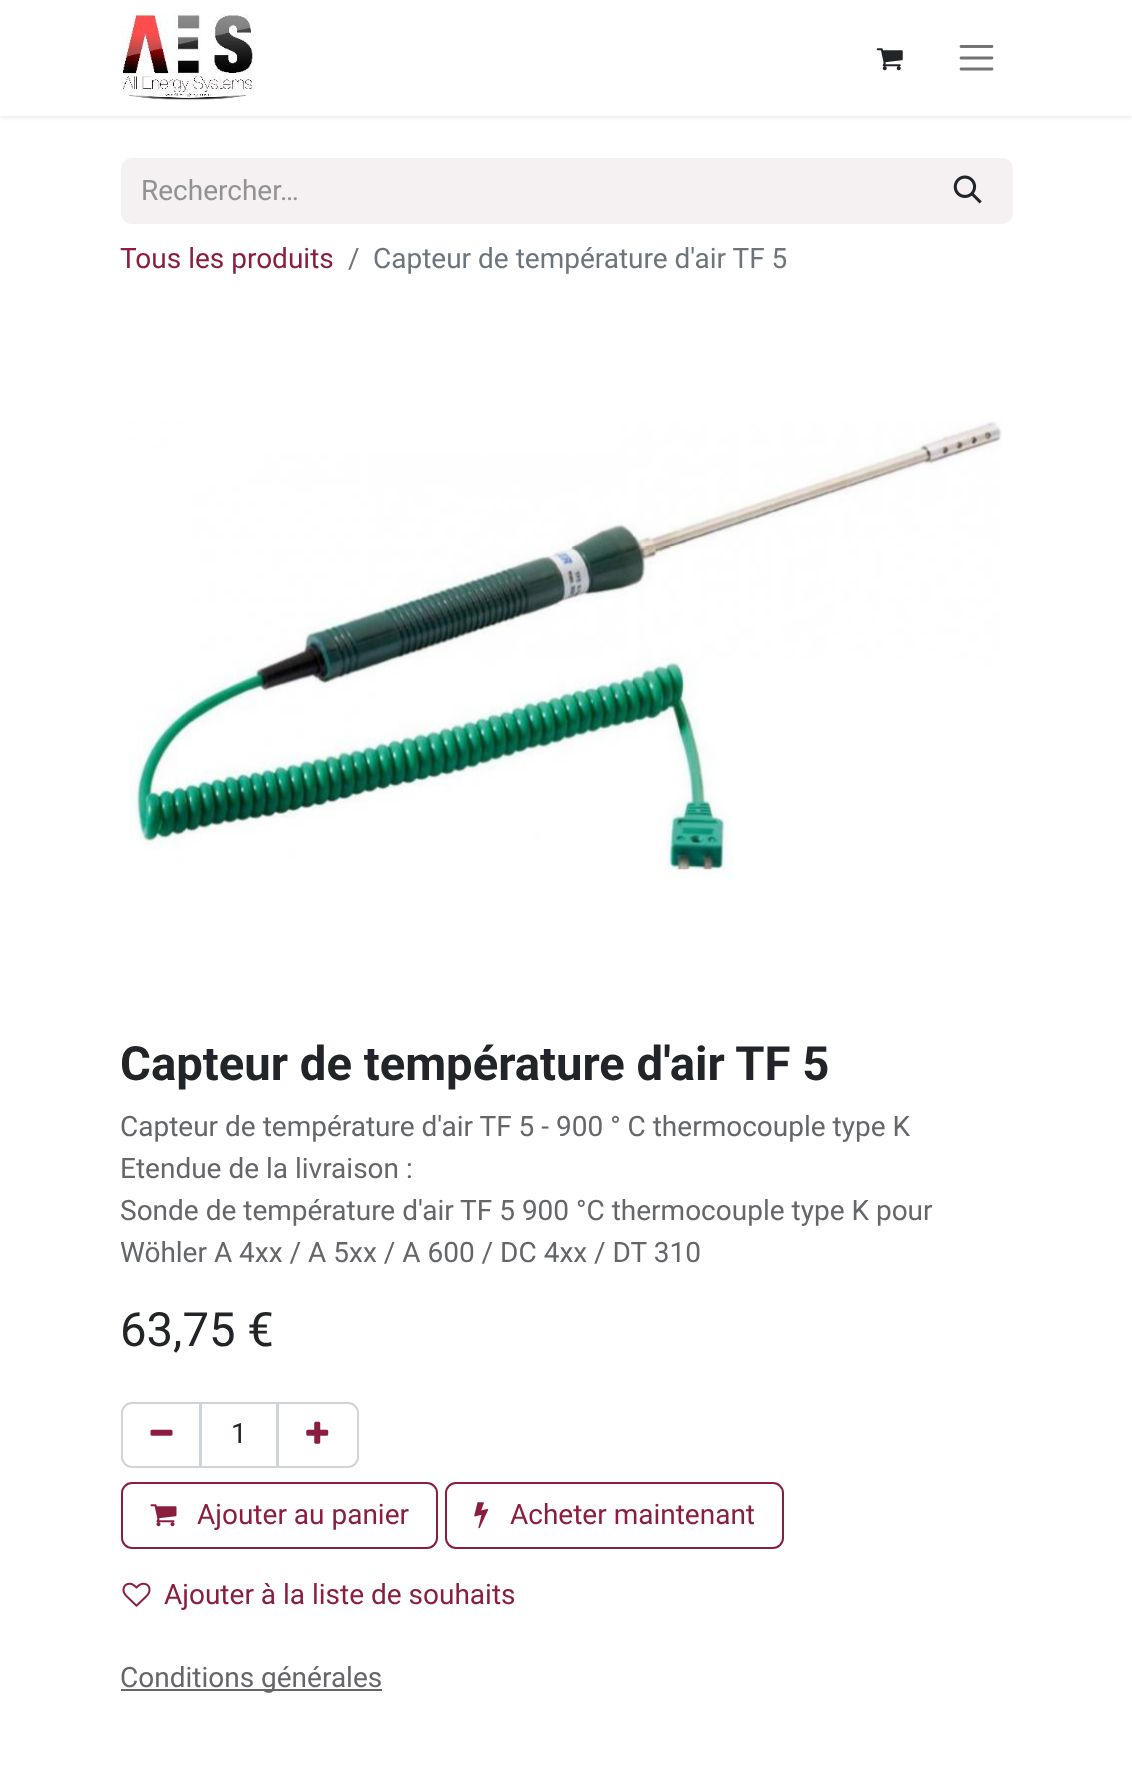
<?xml version="1.0" encoding="UTF-8"?>
<svg xmlns="http://www.w3.org/2000/svg" width="1132" height="1766">
    <defs>
        <filter id="blur1" x="-50%" y="-200%" width="200%" height="500%"><feGaussianBlur stdDeviation="2.5"/></filter>
    </defs>
    <rect width="100%" height="100%" fill="#FFFFFF"/>
    <rect x="0" y="2" width="1132" height="115" fill="#000000" fill-opacity="0.1" filter="url(#blur1)"/>
    <rect x="0" y="0" width="1132" height="116" fill="#FFFFFF"/>
    <image x="120" y="14" width="134" height="87" href="img_01.png"/>
    <image x="876" y="48" width="27" height="23" href="img_02.png"/>
    <path d="M 961 46.5 H 992 M 961 58 H 992 M 961 69 H 992" fill="none" stroke="#737373" stroke-width="2.8" stroke-linecap="round"/>
    <path d="M 132 158 H 926 V 224 H 132 C 126 224 121 219 121 213 V 169 C 121 163 126 158 132 158 Z" fill="#F5F0F2"/>
    <text x="141" y="200" font-family="Roboto" font-size="28" fill="#909294">Rechercher…</text>
    <path d="M 925 159 H 1002 C 1007.5 159 1012 163.5 1012 169 V 213 C 1012 218.5 1007.5 223 1002 223 H 925 Z" fill="#F5F0F2" stroke="#F5F0F2" stroke-width="2"/>
    <image x="953" y="175" width="29" height="29" href="img_03.png"/>
    <text x="120" y="268" font-family="Roboto" font-size="28" fill="#8B1E3F">Tous les produits</text>
    <text x="348" y="268" font-family="Roboto" font-size="28" fill="#6C757D">/</text>
    <text x="373" y="268" font-family="Roboto" font-size="28" fill="#6C757D">Capteur de température d'air TF 5</text>
    <image x="130" y="420" width="872" height="459" href="img_04.png"/>
    <text x="120" y="1080" font-family="Roboto" font-size="47.25" font-weight="700" fill="#212529">Capteur de température d'air TF 5</text>
    <text font-family="Roboto" font-size="28" fill="#646669">
        <tspan x="120" y="1136">Capteur de température d'air TF 5 - 900 ° C thermocouple type K</tspan>
        <tspan x="120" y="1178">Etendue de la livraison :</tspan>
        <tspan x="120" y="1220">Sonde de température d'air TF 5 900 °C thermocouple type K pour</tspan>
        <tspan x="120" y="1262">Wöhler A 4xx / A 5xx / A 600 / DC 4xx / DT 310</tspan>
    </text>
    <text x="120" y="1346" font-family="Roboto" font-size="47.25" fill="#212529">63,75 €</text>
    <rect x="201" y="1403" width="76" height="64" fill="none" stroke="#CED4DA" stroke-width="2"/>
    <path d="M 132 1403 H 200 V 1467 H 132 C 126.5 1467 122 1462.5 122 1457 V 1413 C 122 1407.5 126.5 1403 132 1403 Z" fill="none" stroke="#CED4DA" stroke-width="2"/>
    <image x="150" y="1429" width="23" height="7" href="img_05.png"/>
    <text x="231" y="1443" font-family="Roboto" font-size="28" fill="#212529">1</text>
    <path d="M 278 1403 H 348 C 353.5 1403 358 1407.5 358 1413 V 1457 C 358 1462.5 353.5 1467 348 1467 H 278 Z" fill="none" stroke="#CED4DA" stroke-width="2"/>
    <image x="306" y="1421" width="23" height="23" href="img_06.png"/>
    <rect x="122" y="1483" width="315" height="65" rx="10" fill="none" stroke="#8B1E3F" stroke-width="2"/>
    <image x="150" y="1504" width="27" height="23" href="img_07.png"/>
    <text x="197" y="1524" font-family="Roboto" font-size="28" fill="#8B1E3F">Ajouter au panier</text>
    <rect x="446" y="1483" width="337" height="65" rx="10" fill="none" stroke="#8B1E3F" stroke-width="2"/>
    <image x="474" y="1502" width="15" height="27" href="img_08.png"/>
    <text x="510" y="1524" font-family="Roboto" font-size="28" fill="#8B1E3F">Acheter maintenant</text>
    <image x="122" y="1582" width="29" height="25" href="img_09.png"/>
    <text x="164" y="1604" font-family="Roboto" font-size="28" fill="#8B1E3F">Ajouter à la liste de souhaits</text>
    <rect x="121" y="1689" width="261" height="2" fill="#646669"/>
    <text x="120" y="1687" font-family="Roboto" font-size="28" fill="#646669">Conditions générales</text>
</svg>
